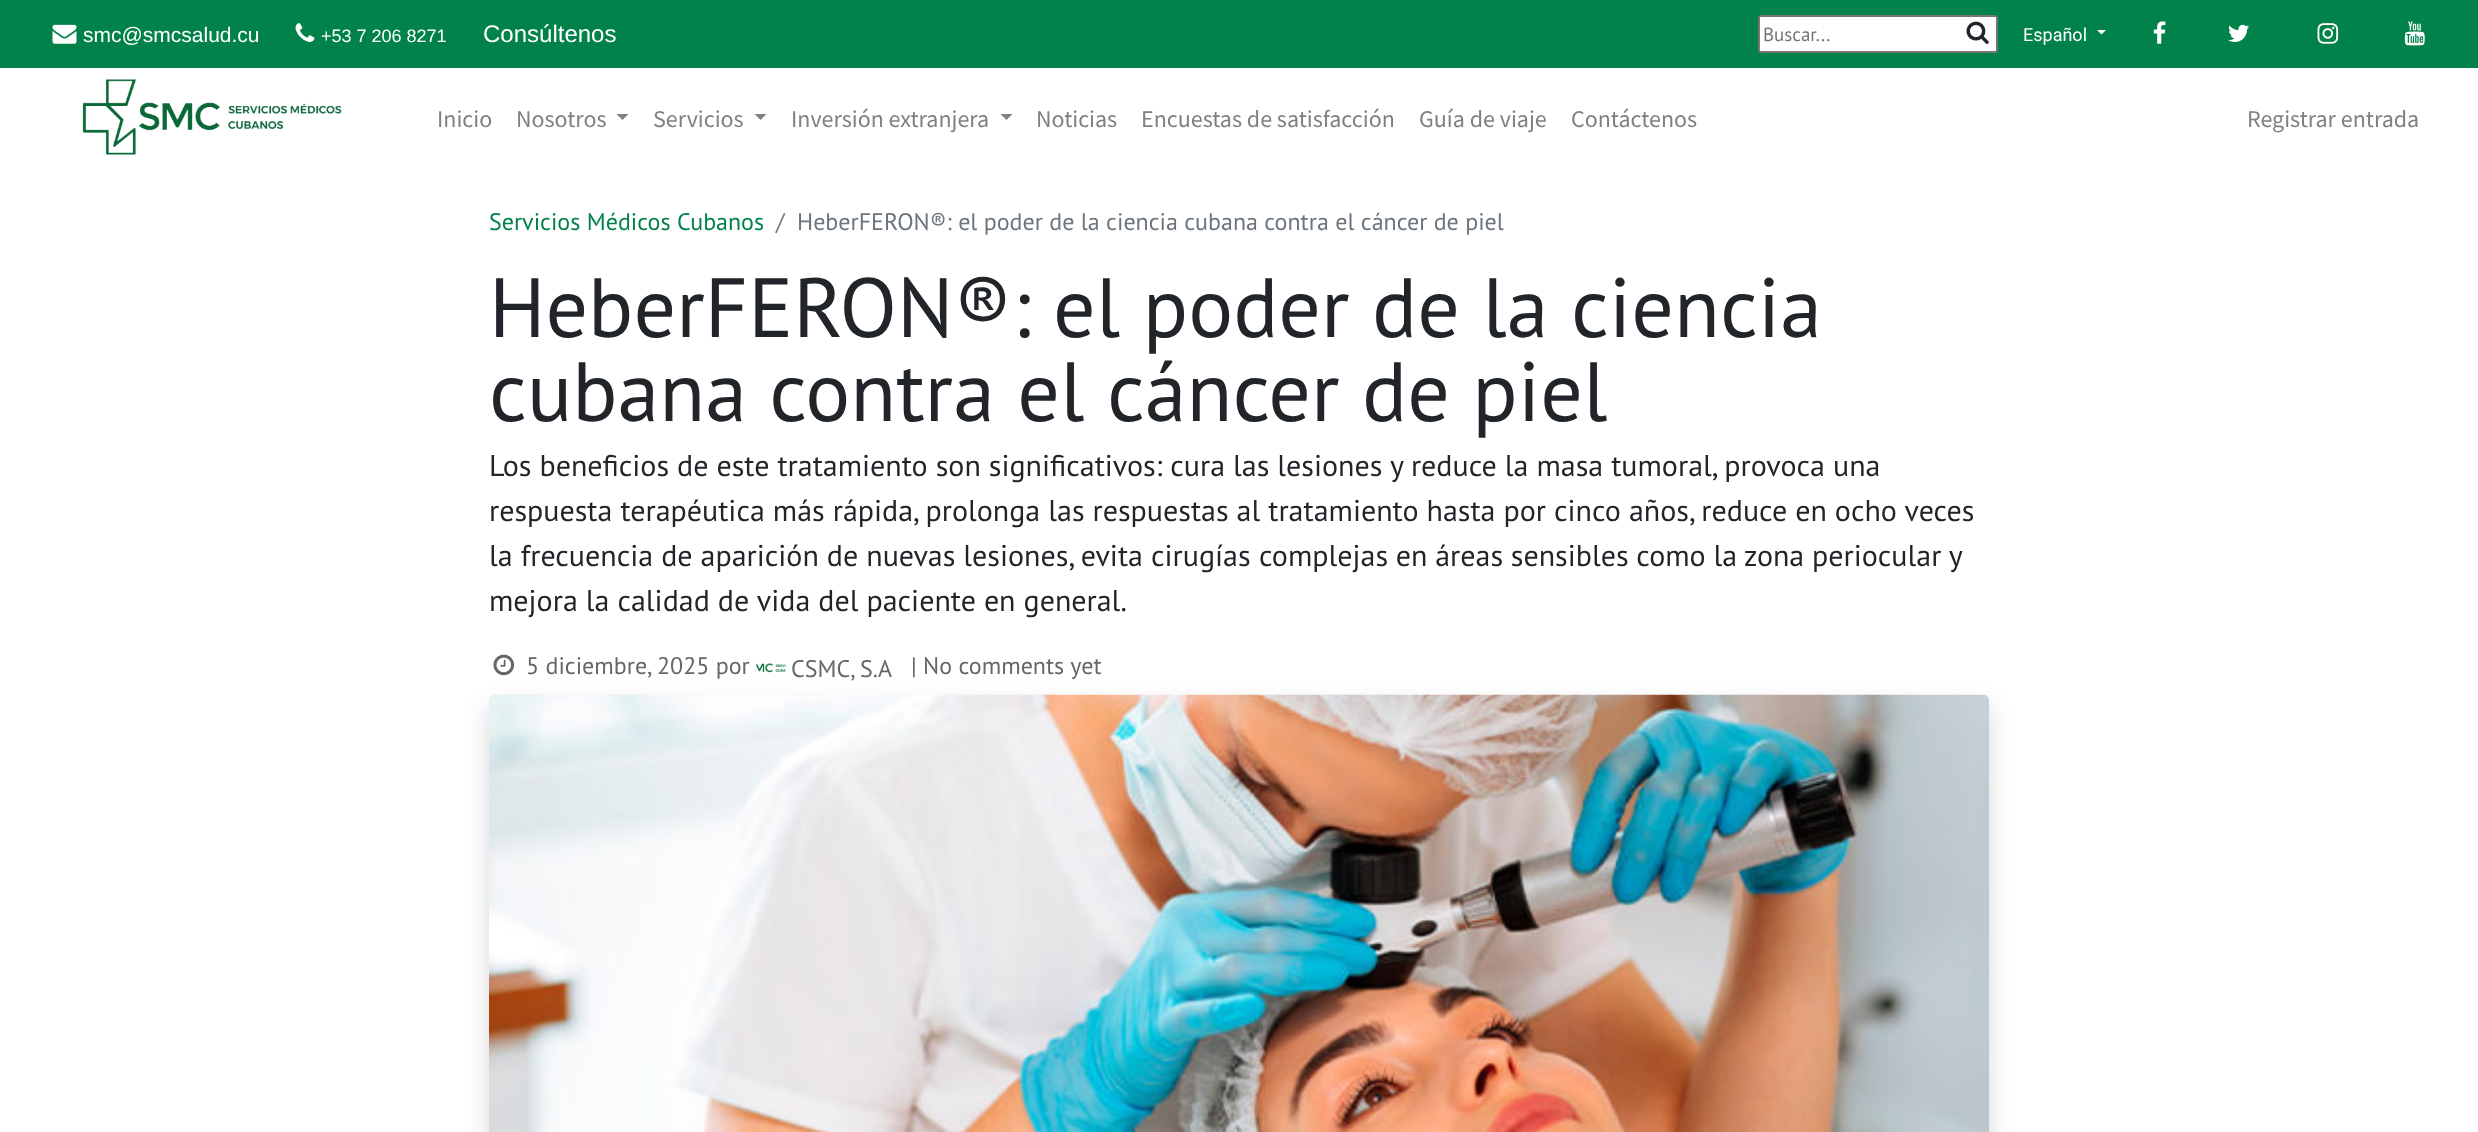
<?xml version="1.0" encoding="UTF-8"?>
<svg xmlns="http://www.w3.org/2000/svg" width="2478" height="1132">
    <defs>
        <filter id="blur1" x="-50%" y="-200%" width="200%" height="500%"><feGaussianBlur stdDeviation="12"/></filter>
    </defs>
    <rect width="100%" height="100%" fill="#FFFFFF"/>
    <rect x="0" y="0" width="2478" height="68" fill="#00824A"/>
    <image x="52" y="24" width="25" height="20" href="img_01.png"/>
    <text x="83" y="42" font-family="Liberation Sans" font-size="21" fill="#FFFFFF">smc@smcsalud.cu</text>
    <image x="295" y="23" width="20" height="19" href="img_02.png"/>
    <text x="321" y="42" font-family="Liberation Sans" font-size="18" fill="#FFFFFF">+53 7 206 8271</text>
    <text x="483" y="42" font-family="Liberation Sans" font-size="24" fill="#FFFFFF">Consúltenos</text>
    <rect x="1759" y="16" width="238" height="36" rx="2" fill="#FFFFFF" stroke="#767676" stroke-width="2"/>
    <text x="1763" y="41" font-family="PT Sans" font-size="19" fill="#757575">Buscar...</text>
    <image x="1966" y="21" width="23" height="23" href="img_03.png"/>
    <text x="2023" y="41" font-family="Roboto" font-size="18" fill="#FFFFFF">Español</text>
    <path d="M 2097 30 H 2106 L 2101.5 34.5 Z" fill="#FFFFFF"/>
    <image x="2153" y="21" width="13" height="23" href="img_04.png"/>
    <image x="2228" y="24" width="21" height="18" href="img_05.png"/>
    <image x="2317" y="23" width="22" height="21" href="img_06.png"/>
    <image x="2404" y="21" width="21" height="25" href="img_07.png"/>
    <image x="82" y="79" width="260" height="76" href="img_08.png"/>
    <text x="437" y="127" font-family="Source Sans Pro" font-size="24" fill="#808080">Inicio</text>
    <text x="516" y="127" font-family="Source Sans Pro" font-size="24" fill="#808080">Nosotros</text>
    <path d="M 616.5 114 H 628.5 L 622.5 120 Z" fill="#808080"/>
    <text x="653" y="127" font-family="Source Sans Pro" font-size="24" fill="#808080">Servicios</text>
    <path d="M 754.5 114 H 766.5 L 760.5 120 Z" fill="#808080"/>
    <text x="791" y="127" font-family="Source Sans Pro" font-size="24" fill="#808080">Inversión extranjera</text>
    <path d="M 1000.5 114 H 1012.5 L 1006.5 120 Z" fill="#808080"/>
    <text x="1036" y="127" font-family="Source Sans Pro" font-size="24" fill="#808080">Noticias</text>
    <text x="1141" y="127" font-family="Source Sans Pro" font-size="24" fill="#808080">Encuestas de satisfacción</text>
    <text x="1419" y="127" font-family="Source Sans Pro" font-size="24" fill="#808080">Guía de viaje</text>
    <text x="1571" y="127" font-family="Source Sans Pro" font-size="24" fill="#808080">Contáctenos</text>
    <text x="2247" y="127" font-family="Source Sans Pro" font-size="24" fill="#808080">Registrar entrada</text>
    <text x="489" y="230" font-family="PT Sans" font-size="24" fill="#00824A">Servicios Médicos Cubanos</text>
    <text x="776" y="230" font-family="PT Sans" font-size="24" fill="#6C757D">/</text>
    <text x="797" y="230" font-family="PT Sans" font-size="24" fill="#6C757D">HeberFERON®: el poder de la ciencia cubana contra el cáncer de piel</text>
    <text font-family="PT Sans" font-size="84" fill="#212529">
        <tspan x="489" y="337">HeberFERON®: el poder de la ciencia</tspan>
        <tspan x="489" y="421">cubana contra el cáncer de piel</tspan>
    </text>
    <text x="489" y="476" font-family="PT Sans" font-size="30" fill="#212529">Los beneficios de este tratamiento son significativos: cura las lesiones</text>
    <text x="1390" y="476" font-family="PT Sans" font-size="30" fill="#212529">y reduce la masa tumoral, provoca una</text>
    <text font-family="PT Sans" font-size="30" fill="#212529">
        <tspan x="489" y="521">respuesta terapéutica más rápida, prolonga las respuestas al tratamiento hasta por cinco años, reduce en ocho veces</tspan>
        <tspan x="489" y="566">la frecuencia de aparición de nuevas lesiones, evita cirugías</tspan>
    </text>
    <text x="1259" y="566" word-spacing="-0.25" font-family="PT Sans" font-size="30" fill="#212529">complejas en áreas sensibles como la zona periocular y</text>
    <text x="489" y="611" font-family="PT Sans" font-size="30" fill="#212529">mejora la calidad de vida del paciente en general.</text>
    <image x="493" y="654" width="22" height="22" href="img_09.png"/>
    <text x="526" y="674" font-family="PT Sans" font-size="24" fill="#646669">5 diciembre, 2025 por</text>
    <image x="756" y="663" width="30" height="10" href="img_10.png"/>
    <text x="791" y="677" font-family="PT Sans" font-size="24" fill="#646669">CSMC, S.A</text>
    <text x="911" y="674" font-family="PT Sans" font-size="24" fill="#646669">| No comments yet</text>
    <rect x="489" y="707" width="1500" height="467" rx="6" fill="#000000" fill-opacity="0.15" filter="url(#blur1)"/>
    <image x="489" y="694" width="1500" height="438" href="img_11.png"/>
</svg>
